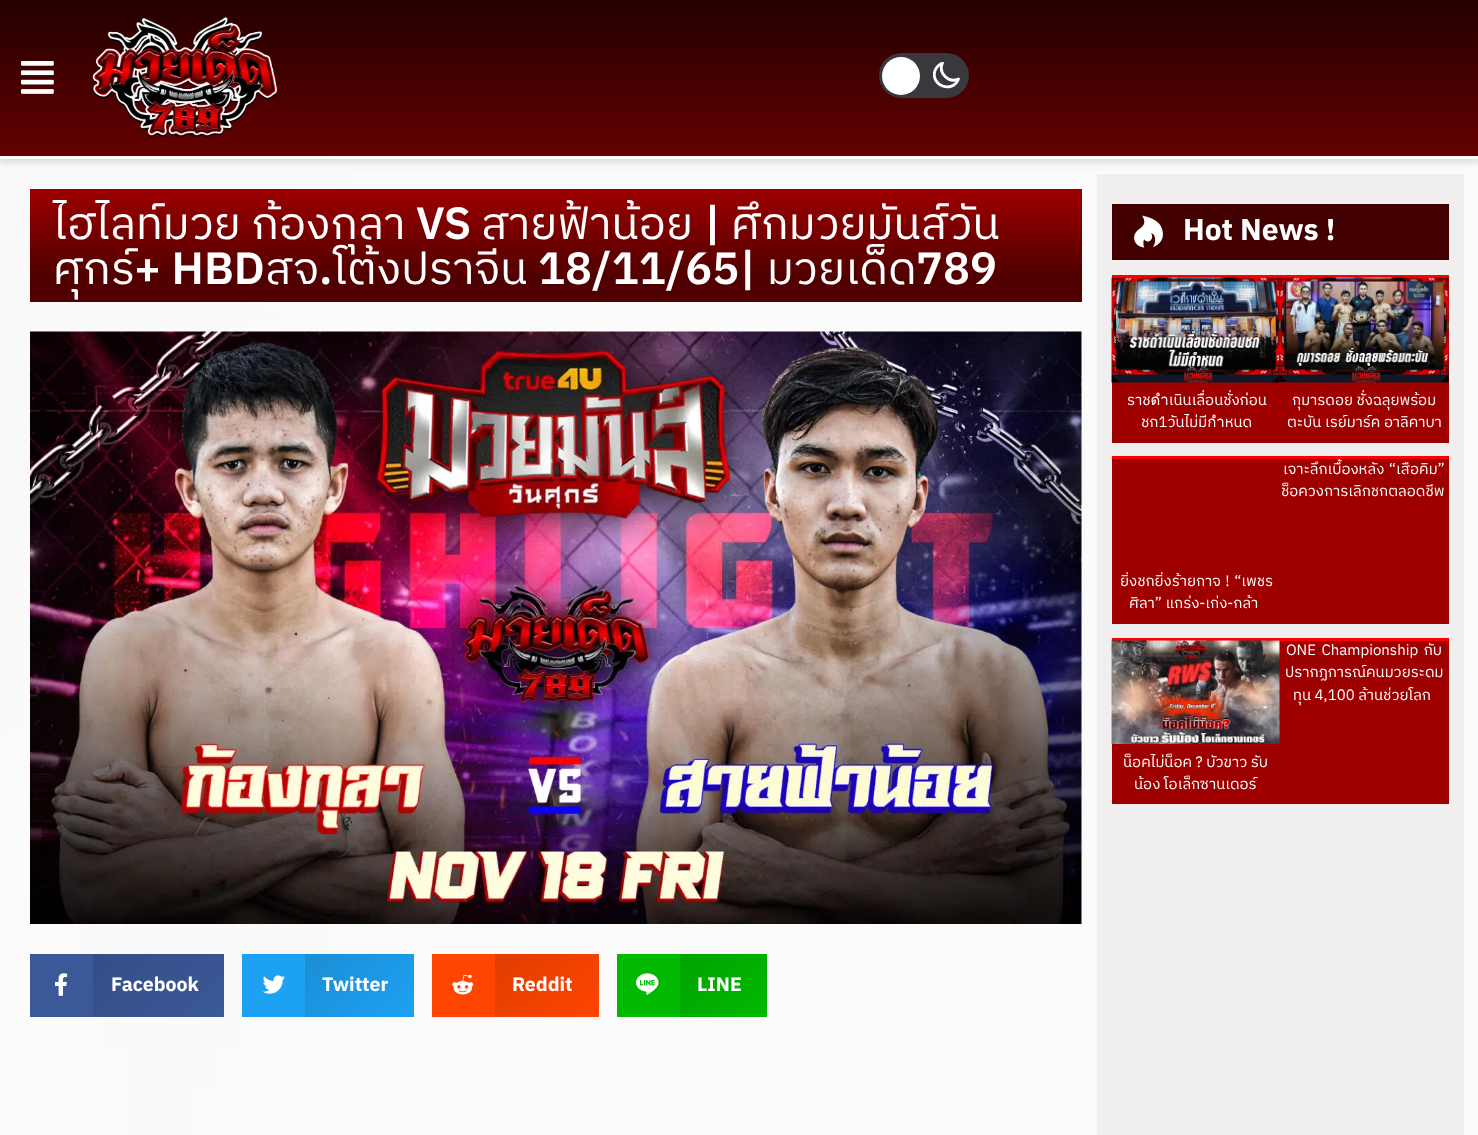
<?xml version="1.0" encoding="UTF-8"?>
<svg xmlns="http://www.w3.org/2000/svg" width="1478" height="1135">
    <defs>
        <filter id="blur1" x="-50%" y="-200%" width="200%" height="500%"><feGaussianBlur stdDeviation="4"/></filter>
        <linearGradient id="g1" gradientUnits="userSpaceOnUse" x1="740" y1="0" x2="740" y2="156"><stop offset="0" stop-color="#240000"/><stop offset="1" stop-color="#650000"/></linearGradient>
        <clipPath id="clip1"><rect x="933" y="62" width="27" height="27"/></clipPath>
        <linearGradient id="g2" gradientUnits="userSpaceOnUse" x1="556" y1="189" x2="556" y2="302"><stop offset="0" stop-color="#9E0000"/><stop offset="0.78" stop-color="#500000"/></linearGradient>
        <linearGradient id="g3" gradientUnits="userSpaceOnUse" x1="110" y1="937" x2="207" y2="1034"><stop offset="0" stop-color="#344E86"/><stop offset="1" stop-color="#3B5998"/></linearGradient>
        <linearGradient id="g4" gradientUnits="userSpaceOnUse" x1="316" y1="942" x2="402" y2="1029"><stop offset="0" stop-color="#1A8ED5"/><stop offset="1" stop-color="#1DA1F2"/></linearGradient>
        <linearGradient id="g5" gradientUnits="userSpaceOnUse" x1="505" y1="944" x2="588" y2="1027"><stop offset="0" stop-color="#E03D00"/><stop offset="1" stop-color="#FF4500"/></linearGradient>
        <linearGradient id="g6" gradientUnits="userSpaceOnUse" x1="686" y1="948" x2="761" y2="1023"><stop offset="0" stop-color="#00A300"/><stop offset="1" stop-color="#00B900"/></linearGradient>
        <linearGradient id="g7" gradientUnits="userSpaceOnUse" x1="1142" y1="312" x2="1419" y2="152"><stop offset="1" stop-color="#420000"/><stop offset="1" stop-color="#FFFFFF"/></linearGradient>
        <clipPath id="clip2"><rect x="1280" y="459" width="169" height="165"/></clipPath>
    </defs>
    <rect width="100%" height="100%" fill="#FFFFFF"/>
    <image x="0" y="159" width="1478" height="976" href="img_01.png"/>
    <rect x="-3" y="-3" width="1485" height="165" fill="#000000" fill-opacity="0.5" filter="url(#blur1)"/>
    <rect x="0" y="0" width="1478" height="156" fill="url(#g1)"/>
    <rect x="0" y="156" width="1478" height="3" fill="#FFFFFF"/>
    <image x="21" y="61" width="33" height="33" href="img_02.png"/>
    <image x="92" y="17" width="186" height="121" href="img_03.png"/>
    <rect x="879" y="53" width="90" height="45" rx="22.5" fill="#39393D"/>
    <circle cx="901" cy="76" r="19" fill="#FFFFFF"/>
    <g clip-path="url(#clip1)">
        <path d="M 958.5 79 C 948.5 83.5 938 73 942.5 63 C 939 64.5 936.5 67 935 70.5 C 930 85.5 952.5 94 958.5 79 Z" fill="none" stroke="#FFFFFF" stroke-width="2.8" stroke-linecap="round" stroke-linejoin="round"/>
    </g>
    <rect x="0" y="159" width="1478" height="976" fill="#FFFFFF" fill-opacity="0.71"/>
    <rect x="30" y="189" width="1052" height="113" fill="url(#g2)"/>
    <text x="53" y="239" font-family="IBM Plex Sans Thai" font-size="45" fill="#FFFFFF">ไฮไลท์มวย ก้องกุลา</text>
    <text x="481" y="239" font-family="IBM Plex Sans Thai" font-size="45" fill="#FFFFFF">สายฟ้าน้อย</text>
    <text x="704" y="239" font-family="IBM Plex Sans Thai" font-size="45" font-weight="600" fill="#FFFFFF">|</text>
    <text x="731" y="239" font-family="IBM Plex Sans Thai" font-size="45" fill="#FFFFFF">ศึกมวยมันส์วัน</text>
    <text x="416" y="239" font-family="IBM Plex Sans Thai" font-size="45" font-weight="600" fill="#FFFFFF">VS</text>
    <text x="53" y="284" font-family="IBM Plex Sans Thai" font-size="45" fill="#FFFFFF">ศุกร์</text>
    <text x="134" y="284" font-family="IBM Plex Sans Thai" font-size="45" font-weight="600" fill="#FFFFFF">+ HBD</text>
    <text x="265" y="284" font-family="IBM Plex Sans Thai" font-size="45" fill="#FFFFFF">สจ</text>
    <text x="319" y="284" font-family="IBM Plex Sans Thai" font-size="45" font-weight="600" fill="#FFFFFF">.</text>
    <text x="333" y="284" font-family="IBM Plex Sans Thai" font-size="45" fill="#FFFFFF">โต้งปราจีน</text>
    <text x="538" y="284" font-family="IBM Plex Sans Thai" font-size="45" font-weight="600" fill="#FFFFFF">18/11/65|</text>
    <text x="767" y="284" font-family="IBM Plex Sans Thai" font-size="45" fill="#FFFFFF">มวยเด็ด</text>
    <text x="916" y="284" font-family="IBM Plex Sans Thai" font-size="45" font-weight="600" fill="#FFFFFF">789</text>
    <image x="30" y="331" width="1052" height="593" href="img_04.png"/>
    <rect x="30" y="954" width="63" height="63" fill="#3B5998"/>
    <image x="55" y="973" width="13" height="23" href="img_05.png"/>
    <rect x="93" y="954" width="131" height="63" fill="url(#g3)"/>
    <text x="111" y="991" font-family="IBM Plex Sans Thai" font-size="19.5" font-weight="700" fill="#FFFFFF">Facebook</text>
    <rect x="242" y="954" width="63" height="63" fill="#1DA1F2"/>
    <image x="262" y="975" width="23" height="19" href="img_06.png"/>
    <rect x="305" y="954" width="109" height="63" fill="url(#g4)"/>
    <text x="322" y="991" font-family="IBM Plex Sans Thai" font-size="19.5" font-weight="700" fill="#FFFFFF">Twitter</text>
    <rect x="432" y="954" width="63" height="63" fill="#FF4500"/>
    <image x="452" y="974" width="22" height="21" href="img_07.png"/>
    <rect x="495" y="954" width="104" height="63" fill="url(#g5)"/>
    <text x="512" y="991" font-family="IBM Plex Sans Thai" font-size="19.5" font-weight="700" fill="#FFFFFF">Reddit</text>
    <rect x="617" y="954" width="63" height="63" fill="#00B900"/>
    <image x="636" y="973" width="23" height="22" href="img_08.png"/>
    <rect x="680" y="954" width="87" height="63" fill="url(#g6)"/>
    <text x="697" y="991" font-family="IBM Plex Sans Thai" font-size="19.5" font-weight="700" fill="#FFFFFF">LINE</text>
    <rect x="1097" y="174" width="367" height="961" fill="#F0EEEE"/>
    <rect x="1112" y="204" width="337" height="56" fill="url(#g7)"/>
    <image x="1134" y="215" width="29" height="33" href="img_09.png"/>
    <text x="1183" y="240" font-family="IBM Plex Sans Thai" font-size="30" font-weight="700" fill="#FFFFFF">Hot News !</text>
    <rect x="1112" y="278" width="337" height="165" fill="#9E0000"/>
    <rect x="1112" y="275" width="337" height="3" fill="#FF0000"/>
    <image x="1111" y="277" width="169" height="106" href="img_10.png"/>
    <text x="1127" y="405" font-family="IBM Plex Sans Thai" font-size="15" fill="#FFFFFF">ราชดำเนินเลื่อนชั่งก่อน</text>
    <text x="1141" y="427" font-family="IBM Plex Sans Thai" font-size="15" fill="#FFFFFF">ชก1วันไม่มีกำหนด</text>
    <image x="1279" y="277" width="170" height="106" href="img_11.png"/>
    <text x="1292" y="405" font-family="IBM Plex Sans Thai" font-size="15" fill="#FFFFFF">กุมารดอย ชั่งฉลุยพร้อม</text>
    <text x="1287" y="427" font-family="IBM Plex Sans Thai" font-size="15" fill="#FFFFFF">ตะบัน เรย์มาร์ค อาลิคาบา</text>
    <rect x="1112" y="459" width="337" height="165" fill="#9E0000"/>
    <text x="1283" y="474" word-spacing="1" font-family="IBM Plex Sans Thai" font-size="15" fill="#FFFFFF">เจาะลึกเบื้องหลัง “เสือคิม”</text>
    <g clip-path="url(#clip2)">
        <text x="1281" y="496" font-family="IBM Plex Sans Thai" font-size="15" fill="#FFFFFF">ช็อควงการเลิกชกตลอดชีพ</text>
    </g>
    <rect x="1112" y="456" width="337" height="3" fill="#FF0000"/>
    <text x="1120" y="586" word-spacing="1" font-family="IBM Plex Sans Thai" font-size="15" fill="#FFFFFF">ยิ่งชกยิ่งร้ายกาจ ! “เพชร</text>
    <text x="1129" y="608" font-family="IBM Plex Sans Thai" font-size="15" fill="#FFFFFF">ศิลา” แกร่ง-เก่ง-กล้า</text>
    <rect x="1112" y="641" width="337" height="163" fill="#9E0000"/>
    <text x="1286" y="655" word-spacing="2" font-family="IBM Plex Sans Thai" font-size="15" fill="#FFFFFF">ONE Championship กับ</text>
    <text x="1285" y="677" font-family="IBM Plex Sans Thai" font-size="15" fill="#FFFFFF">ปรากฏการณ์คนมวยระดม</text>
    <text x="1293" y="700" font-family="IBM Plex Sans Thai" font-size="15" fill="#FFFFFF">ทุน 4,100 ล้านช่วยโลก</text>
    <rect x="1112" y="638" width="337" height="3" fill="#FF0000"/>
    <image x="1111" y="640" width="169" height="104" href="img_12.png"/>
    <text x="1123" y="767" font-family="IBM Plex Sans Thai" font-size="15" fill="#FFFFFF">น็อคไม่น็อค ? บัวขาว รับ</text>
    <text x="1134" y="789" font-family="IBM Plex Sans Thai" font-size="15" fill="#FFFFFF">น้อง โอเล็กซานเดอร์</text>
</svg>
